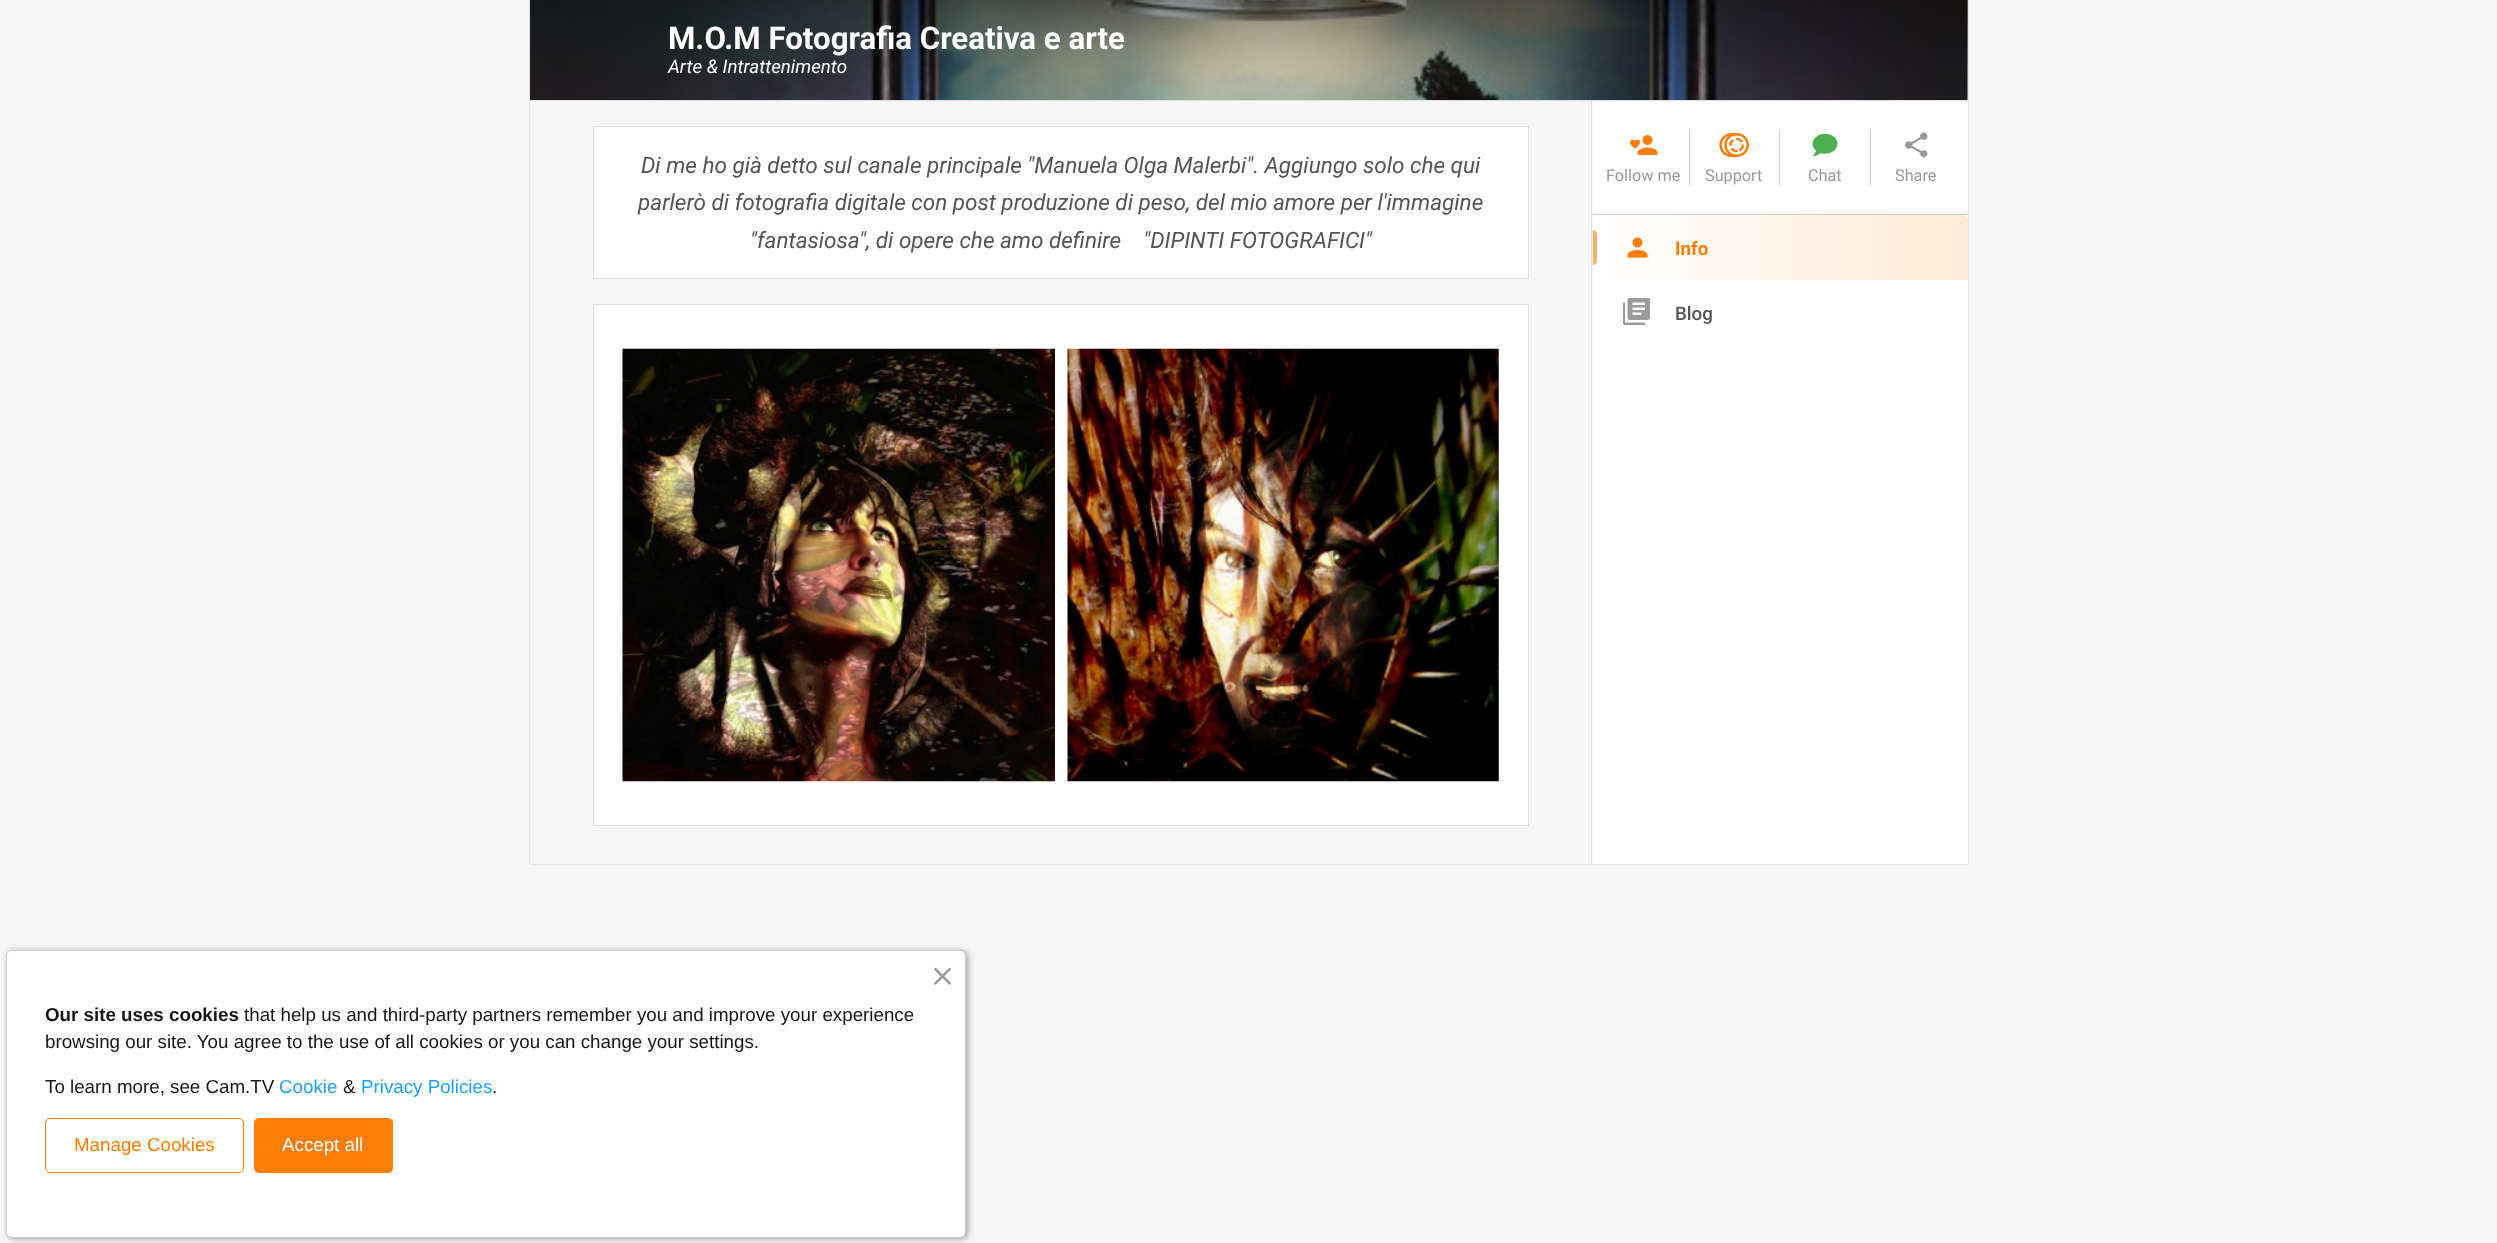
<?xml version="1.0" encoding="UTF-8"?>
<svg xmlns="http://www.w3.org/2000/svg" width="2497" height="1243">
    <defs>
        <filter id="blur1" x="-50%" y="-200%" width="200%" height="500%"><feGaussianBlur stdDeviation="1"/></filter>
        <linearGradient id="g1" gradientUnits="userSpaceOnUse" x1="1249" y1="0" x2="1249" y2="100"><stop offset="0" stop-color="#000000" stop-opacity="0.45"/><stop offset="1" stop-color="#000000" stop-opacity="0.08"/></linearGradient>
        <linearGradient id="g2" gradientUnits="userSpaceOnUse" x1="1968" y1="247" x2="1593" y2="248"><stop offset="0" stop-color="#FFEAD5"/><stop offset="1" stop-color="#FFFFFF"/></linearGradient>
        <filter id="blur2" x="-50%" y="-200%" width="200%" height="500%"><feGaussianBlur stdDeviation="3"/></filter>
    </defs>
    <rect width="100%" height="100%" fill="#F6F6F6"/>
    <rect x="530" y="0" width="1438" height="864" fill="#000000" fill-opacity="0.2" filter="url(#blur1)"/>
    <rect x="1593" y="0" width="375" height="864" fill="#FFFFFF"/>
    <rect x="530" y="100" width="1438" height="1" fill="#DDDDDD"/>
    <image x="530" y="0" width="1438" height="100" href="img_01.png"/>
    <rect x="530" y="0" width="1438" height="100" fill="url(#g1)"/>
    <text x="668" y="49" font-family="Roboto" font-size="31.25" font-weight="700" fill="#FFFFFF">M.O.M Fotografia Creativa e arte</text>
    <text x="668" y="73" font-family="Roboto" font-size="18.75" font-style="italic" fill="#FFFFFF">Arte &amp; Intrattenimento</text>
    <rect x="530" y="101" width="1063" height="763" fill="#F6F6F6"/>
    <rect x="1591" y="101" width="1" height="763" fill="#DDDDDD"/>
    <rect x="593.5" y="126.5" width="935" height="152" fill="#FFFFFF" stroke="#DDDDDD"/>
    <text x="641" y="173" font-family="Roboto" font-size="22.5" font-style="italic" fill="#545454">Di me ho già detto sul canale principale "Manuela Olga Malerbi". Aggiungo solo che qui</text>
    <text x="638" y="210" font-family="Roboto" font-size="22.5" font-style="italic" fill="#545454">parlerò di fotografia digitale con post produzione di peso, del mio amore per l'immagine</text>
    <text x="750" y="248" font-family="Roboto" font-size="22.5" font-style="italic" fill="#545454" xml:space="preserve">"fantasiosa", di opere che amo definire    "DIPINTI FOTOGRAFICI"</text>
    <rect x="593.5" y="304.5" width="935" height="521" fill="#FFFFFF" stroke="#DDDDDD"/>
    <image x="622" y="348" width="433" height="434" href="img_02.png"/>
    <image x="1067" y="348" width="432" height="434" href="img_03.png"/>
    <rect x="1593" y="214" width="375" height="1" fill="#CCCCCC"/>
    <rect x="1689" y="130" width="1" height="55" fill="#CCCCCC"/>
    <image x="1630" y="135" width="28" height="20" href="img_04.png"/>
    <text x="1606" y="181" font-family="Roboto" font-size="16.25" fill="#999999">Follow me</text>
    <rect x="1779" y="130" width="1" height="55" fill="#CCCCCC"/>
    <image x="1719" y="133" width="30" height="24" href="img_05.png"/>
    <text x="1705" y="181" font-family="Roboto" font-size="16.25" fill="#999999">Support</text>
    <rect x="1870" y="130" width="1" height="55" fill="#CCCCCC"/>
    <image x="1812" y="133" width="26" height="24" href="img_06.png"/>
    <text x="1808" y="181" font-family="Roboto" font-size="16.25" fill="#999999">Chat</text>
    <image x="1905" y="132" width="23" height="26" href="img_07.png"/>
    <text x="1895" y="181" font-family="Roboto" font-size="16.25" fill="#999999">Share</text>
    <path d="M 1599 215 H 1962 C 1965.5 215 1968 217.5 1968 221 V 280 H 1593 V 221 C 1593 217.5 1595.5 215 1599 215 Z" fill="url(#g2)"/>
    <path d="M 1593 230 C 1595 230 1597 232 1597 234 V 261 C 1597 263 1595 265 1593 265 Z" fill="#FFB167"/>
    <image x="1627" y="237" width="21" height="21" href="img_08.png"/>
    <text x="1675" y="255" font-family="Roboto" font-size="18.75" font-weight="700" fill="#FF7D02">Info</text>
    <image x="1623" y="298" width="27" height="27" href="img_09.png"/>
    <text x="1675" y="320" font-family="Roboto" font-size="18.75" font-weight="500" fill="#545454">Blog</text>
    <rect x="8" y="951" width="960" height="288" rx="6" fill="#000000" fill-opacity="0.35" filter="url(#blur2)"/>
    <rect x="6.5" y="950.5" width="959" height="287" rx="5.5" fill="#FFFFFF" stroke="#CCCCCC"/>
    <image x="933" y="967" width="19" height="18" href="img_10.png"/>
    <text x="45" y="1021" font-family="Liberation Sans" font-size="18.75" font-weight="700" fill="#161616">Our site uses cookies</text>
    <text x="244" y="1021" font-family="Liberation Sans" font-size="18.75" fill="#161616">that help us and third-party partners remember you and improve your experience</text>
    <text x="45" y="1048" font-family="Liberation Sans" font-size="18.75" fill="#161616">browsing our site. You agree to the use of all cookies or you can change your settings.</text>
    <text x="45" y="1093" font-family="Liberation Sans" font-size="18.75" fill="#161616">To learn more, see Cam.TV</text>
    <text x="279" y="1093" font-family="Liberation Sans" font-size="18.75" fill="#219FFF">Cookie</text>
    <text x="343" y="1093" font-family="Liberation Sans" font-size="18.75" fill="#161616">&amp;</text>
    <text x="361" y="1093" font-family="Liberation Sans" font-size="18.75" fill="#219FFF">Privacy Policies</text>
    <text x="492" y="1093" font-family="Liberation Sans" font-size="18.75" fill="#161616">.</text>
    <rect x="45.5" y="1118.5" width="198" height="54" rx="4.5" fill="none" stroke="#FF7D02"/>
    <text x="74" y="1151" font-family="Liberation Sans" font-size="18.75" fill="#FF7D02">Manage Cookies</text>
    <rect x="254" y="1118" width="139" height="55" rx="5" fill="#FF7D02"/>
    <text x="282" y="1151" font-family="Liberation Sans" font-size="18.75" fill="#FFFFFF">Accept all</text>
</svg>
